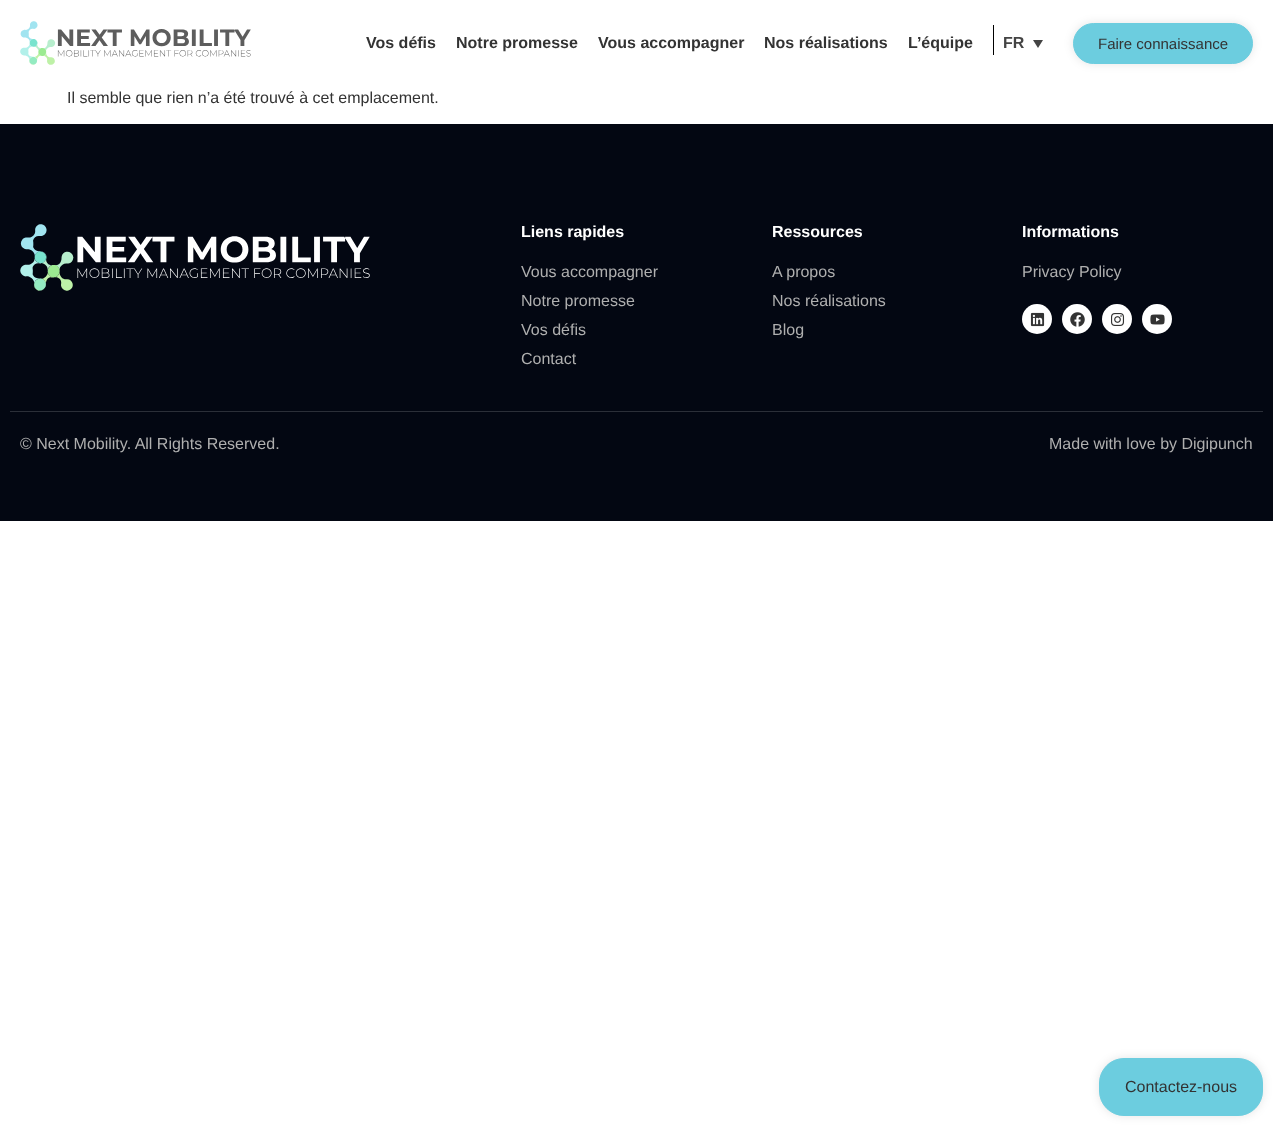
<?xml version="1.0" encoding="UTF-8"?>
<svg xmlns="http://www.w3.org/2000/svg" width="1273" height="1126">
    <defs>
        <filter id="blur1" x="-50%" y="-200%" width="200%" height="500%"><feGaussianBlur stdDeviation="5"/></filter>
    </defs>
    <rect width="100%" height="100%" fill="#FFFFFF"/>
    <image x="20" y="21" width="231" height="44" href="img_01.png"/>
    <text x="366" y="48" font-family="Liberation Sans" font-size="16" font-weight="700" fill="#333333">Vos défis</text>
    <text x="456" y="48" font-family="Liberation Sans" font-size="16" font-weight="700" fill="#333333">Notre promesse</text>
    <text x="598" y="48" font-family="Liberation Sans" font-size="16" font-weight="700" fill="#333333">Vous accompagner</text>
    <text x="764" y="48" font-family="Liberation Sans" font-size="16" font-weight="700" fill="#333333">Nos réalisations</text>
    <text x="908" y="48" font-family="Liberation Sans" font-size="16" font-weight="700" fill="#333333">L’équipe</text>
    <rect x="993" y="25" width="1" height="30" fill="#000000"/>
    <text x="1003" y="48" font-family="Liberation Sans" font-size="16" font-weight="700" fill="#444444">FR</text>
    <path d="M 1033 40 H 1043 L 1038 48 Z" fill="#444444"/>
    <rect x="1073" y="23" width="180" height="41" rx="20.5" fill="#000000" fill-opacity="0.1" filter="url(#blur1)"/>
    <rect x="1073.5" y="23.5" width="179" height="40" rx="20" fill="#6CCDDF" stroke="#6CCDDF"/>
    <text x="1098" y="49" font-family="Liberation Sans" font-size="15" fill="#333333">Faire connaissance</text>
    <text x="67" y="103" font-family="Liberation Sans" font-size="16" fill="#333333">Il semble que rien n’a été trouvé à cet emplacement.</text>
    <rect x="0" y="124" width="1273" height="397" fill="#030712"/>
    <image x="20" y="224" width="350" height="67" href="img_02.png"/>
    <text x="521" y="237" font-family="Liberation Sans" font-size="16" font-weight="700" fill="#FFFFFF">Liens rapides</text>
    <text font-family="Liberation Sans" font-size="16" fill="#AFAFAF">
        <tspan x="521" y="277">Vous accompagner</tspan>
        <tspan x="521" y="306">Notre promesse</tspan>
        <tspan x="521" y="335">Vos défis</tspan>
        <tspan x="521" y="364">Contact</tspan>
    </text>
    <text x="772" y="237" font-family="Liberation Sans" font-size="16" font-weight="700" fill="#FFFFFF">Ressources</text>
    <text font-family="Liberation Sans" font-size="16" fill="#AFAFAF">
        <tspan x="772" y="277">A propos</tspan>
        <tspan x="772" y="306">Nos réalisations</tspan>
        <tspan x="772" y="335">Blog</tspan>
    </text>
    <text x="1022" y="237" font-family="Liberation Sans" font-size="16" font-weight="700" fill="#FFFFFF">Informations</text>
    <text x="1022" y="277" font-family="Liberation Sans" font-size="16" fill="#AFAFAF">Privacy Policy</text>
    <circle cx="1037" cy="319" r="15" fill="#FFFFFF"/>
    <image x="1030" y="312" width="15" height="15" href="img_03.png"/>
    <circle cx="1077" cy="319" r="15" fill="#FFFFFF"/>
    <image x="1070" y="312" width="15" height="15" href="img_04.png"/>
    <circle cx="1117" cy="319" r="15" fill="#FFFFFF"/>
    <image x="1111" y="313" width="14" height="13" href="img_05.png"/>
    <circle cx="1157" cy="319" r="15" fill="#FFFFFF"/>
    <image x="1150" y="314" width="15" height="11" href="img_06.png"/>
    <rect x="10" y="411" width="1253" height="1" fill="#2B2F38"/>
    <text x="20" y="449" font-family="Liberation Sans" font-size="16" fill="#AFAFAF">© Next Mobility. All Rights Reserved.</text>
    <text x="1049" y="449" font-family="Liberation Sans" font-size="16" fill="#AFAFAF">Made with love by Digipunch</text>
    <rect x="1099" y="1058" width="164" height="58" rx="25" fill="#000000" fill-opacity="0.1" filter="url(#blur1)"/>
    <rect x="1099.5" y="1058.5" width="163" height="57" rx="24.5" fill="#6CCDDF" stroke="#6CCDDF"/>
    <text x="1125" y="1092" font-family="Liberation Sans" font-size="16" fill="#333333">Contactez-nous</text>
</svg>
